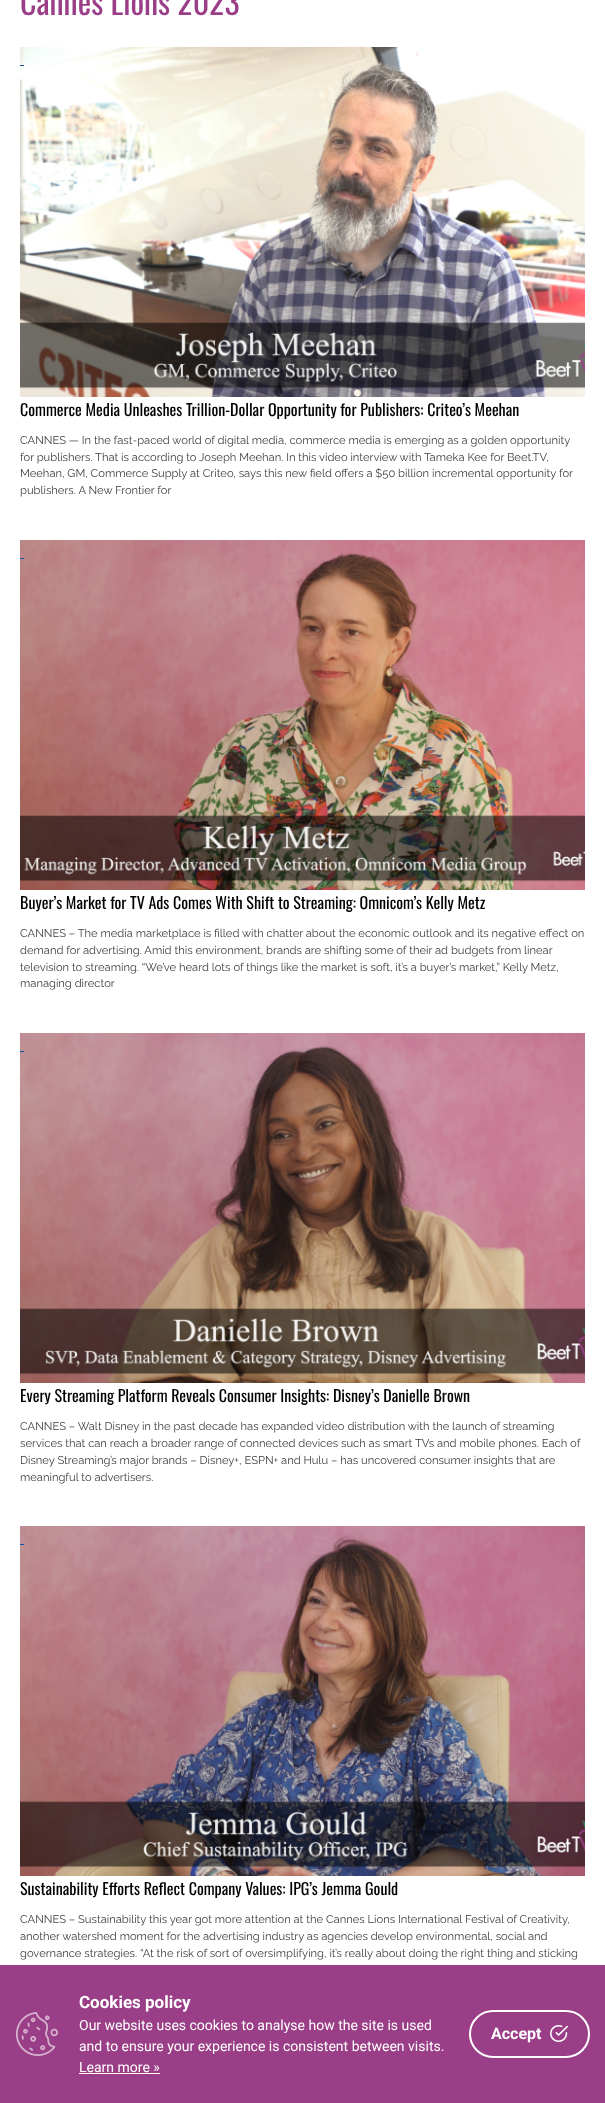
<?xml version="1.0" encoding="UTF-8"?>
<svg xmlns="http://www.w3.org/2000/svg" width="605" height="2103">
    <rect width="100%" height="100%" fill="#FFFFFF"/>
    <text x="20" y="15" font-family="Oswald" font-size="32" fill="#9A3E87">Cannes Lions 2023</text>
    <image x="20" y="47" width="565" height="350" href="img_01.png"/>
    <rect x="20" y="65" width="4" height="1" fill="#1456A5"/>
    <text x="20" y="416" font-family="Oswald" font-size="16" fill="#000000">Commerce Media Unleashes Trillion-Dollar Opportunity for Publishers: Criteo’s Meehan</text>
    <text font-family="Raleway" font-size="11.2" fill="#404040">
        <tspan x="20" y="444">CANNES — In the fast-paced world of digital media, commerce media is emerging as a golden opportunity</tspan>
        <tspan x="20" y="461">for publishers. That is according to Joseph Meehan. In this video interview with Tameka Kee for Beet.TV,</tspan>
        <tspan x="20" y="477">Meehan, GM, Commerce Supply at Criteo, says this new field offers a $50 billion incremental opportunity for</tspan>
        <tspan x="20" y="494">publishers. A New Frontier for</tspan>
    </text>
    <image x="20" y="540" width="565" height="350" href="img_02.png"/>
    <rect x="20" y="558" width="4" height="1" fill="#1456A5"/>
    <text x="20" y="909" font-family="Oswald" font-size="16" fill="#000000">Buyer’s Market for TV Ads Comes With Shift to Streaming: Omnicom’s Kelly Metz</text>
    <text font-family="Raleway" font-size="11.2" fill="#404040">
        <tspan x="20" y="937">CANNES – The media marketplace is filled with chatter about the economic outlook and its negative effect on</tspan>
        <tspan x="20" y="954">demand for advertising. Amid this environment, brands are shifting some of their ad budgets from linear</tspan>
        <tspan x="20" y="971">television to streaming. “We’ve heard lots of things like the market is soft, it’s a buyer’s market,” Kelly Metz,</tspan>
        <tspan x="20" y="987">managing director</tspan>
    </text>
    <image x="20" y="1033" width="565" height="350" href="img_03.png"/>
    <rect x="20" y="1051" width="4" height="1" fill="#1456A5"/>
    <text x="20" y="1402" font-family="Oswald" font-size="16" fill="#000000">Every Streaming Platform Reveals Consumer Insights: Disney’s Danielle Brown</text>
    <text font-family="Raleway" font-size="11.2" fill="#404040">
        <tspan x="20" y="1430">CANNES – Walt Disney in the past decade has expanded video distribution with the launch of streaming</tspan>
        <tspan x="20" y="1447">services that can reach a broader range of connected devices such as smart TVs and mobile phones. Each of</tspan>
        <tspan x="20" y="1464">Disney Streaming’s major brands – Disney+, ESPN+ and Hulu – has uncovered consumer insights that are</tspan>
        <tspan x="20" y="1481">meaningful to advertisers.</tspan>
    </text>
    <image x="20" y="1526" width="565" height="350" href="img_04.png"/>
    <rect x="20" y="1544" width="4" height="1" fill="#1456A5"/>
    <text x="20" y="1895" font-family="Oswald" font-size="16" fill="#000000">Sustainability Efforts Reflect Company Values: IPG’s Jemma Gould</text>
    <text font-family="Raleway" font-size="11.2" fill="#404040">
        <tspan x="20" y="1923">CANNES – Sustainability this year got more attention at the Cannes Lions International Festival of Creativity,</tspan>
        <tspan x="20" y="1940">another watershed moment for the advertising industry as agencies develop environmental, social and</tspan>
        <tspan x="20" y="1957">governance strategies. “At the risk of sort of oversimplifying, it’s really about doing the right thing and sticking</tspan>
    </text>
    <rect x="0" y="1965" width="605" height="138" fill="#9A3E87"/>
    <image x="16" y="2012" width="42" height="44" href="img_05.png"/>
    <text x="79" y="2008" font-family="Roboto" font-size="17" font-weight="700" fill="#FFFFFF">Cookies policy</text>
    <text font-family="Roboto" font-size="14" fill="#FFFFFF">
        <tspan x="79" y="2030">Our website uses cookies to analyse how the site is used</tspan>
        <tspan x="79" y="2051">and to ensure your experience is consistent between visits.</tspan>
        <tspan x="79" y="2072">Learn more »</tspan>
    </text>
    <rect x="79" y="2073" width="81" height="1" fill="#FFFFFF"/>
    <rect x="470" y="2011" width="119" height="46" rx="23" fill="none" stroke="#FFFFFF" stroke-width="2"/>
    <text x="491" y="2039" font-family="Roboto" font-size="16" font-weight="700" fill="#FFFFFF">Accept</text>
    <image x="550" y="2025" width="18" height="17" href="img_06.png"/>
</svg>
